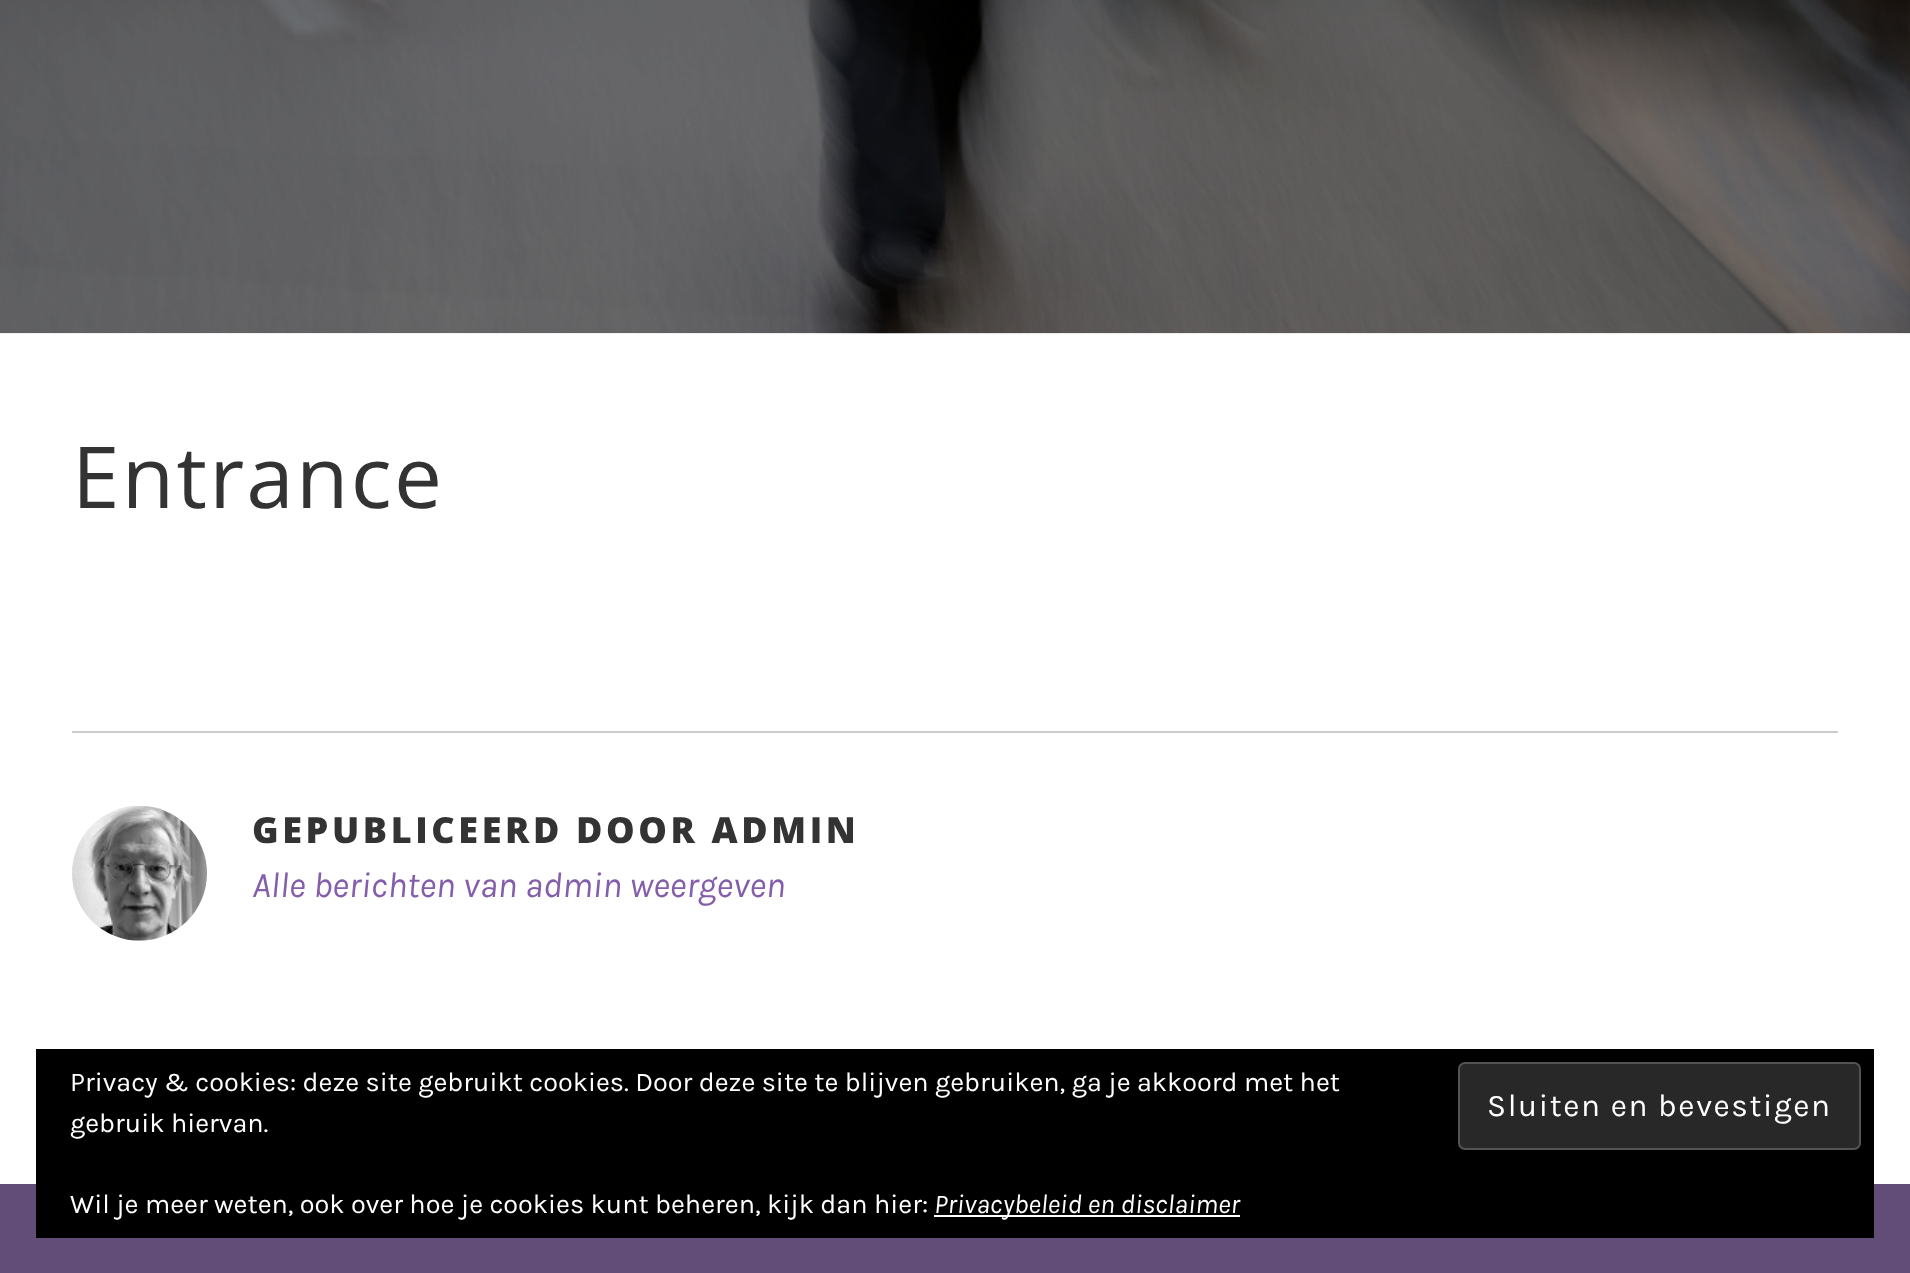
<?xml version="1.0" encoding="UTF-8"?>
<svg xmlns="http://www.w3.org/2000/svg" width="1910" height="1273">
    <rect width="100%" height="100%" fill="#FFFFFF"/>
    <image x="0" y="0" width="1910" height="334" href="img_01.png"/>
    <text x="72" y="508" font-family="Open Sans" font-size="85.5" letter-spacing="2.25" fill="#333333">Entrance</text>
    <rect x="72" y="731" width="1766" height="2" fill="#CCCCCC"/>
    <image x="72" y="806" width="135" height="135" href="img_02.png"/>
    <text x="252" y="843" font-family="Open Sans" font-size="36" font-weight="800" letter-spacing="3.6" fill="#333333">GEPUBLICEERD DOOR ADMIN</text>
    <text x="252" y="897" font-family="Karla" font-size="36" font-style="italic" fill="#845DAB">Alle berichten van admin weergeven</text>
    <rect x="0" y="1184" width="1910" height="89" fill="#624C78"/>
    <rect x="36" y="1049" width="1838" height="189" fill="#000000"/>
    <text font-family="Karla" font-size="27" fill="#FFFFFF">
        <tspan x="70" y="1091">Privacy &amp; cookies: deze site gebruikt cookies. Door deze site te blijven gebruiken, ga je akkoord met het</tspan>
        <tspan x="70" y="1132">gebruik hiervan.</tspan>
    </text>
    <rect x="1459" y="1063" width="401" height="86" rx="6" fill="#282828" stroke="#535353" stroke-width="2"/>
    <text x="1487" y="1116" font-family="Karla" font-size="31.5" letter-spacing="1.6" fill="#FFFFFF">Sluiten en bevestigen</text>
    <text x="70" y="1213" font-family="Karla" font-size="27" fill="#FFFFFF">Wil je meer weten, ook over hoe je cookies kunt beheren, kijk dan hier:</text>
    <rect x="934" y="1215" width="306" height="2" fill="#FFFFFF"/>
    <text x="934" y="1213" font-family="Karla" font-size="27" font-style="italic" fill="#FFFFFF">Privacybeleid en disclaimer</text>
</svg>
